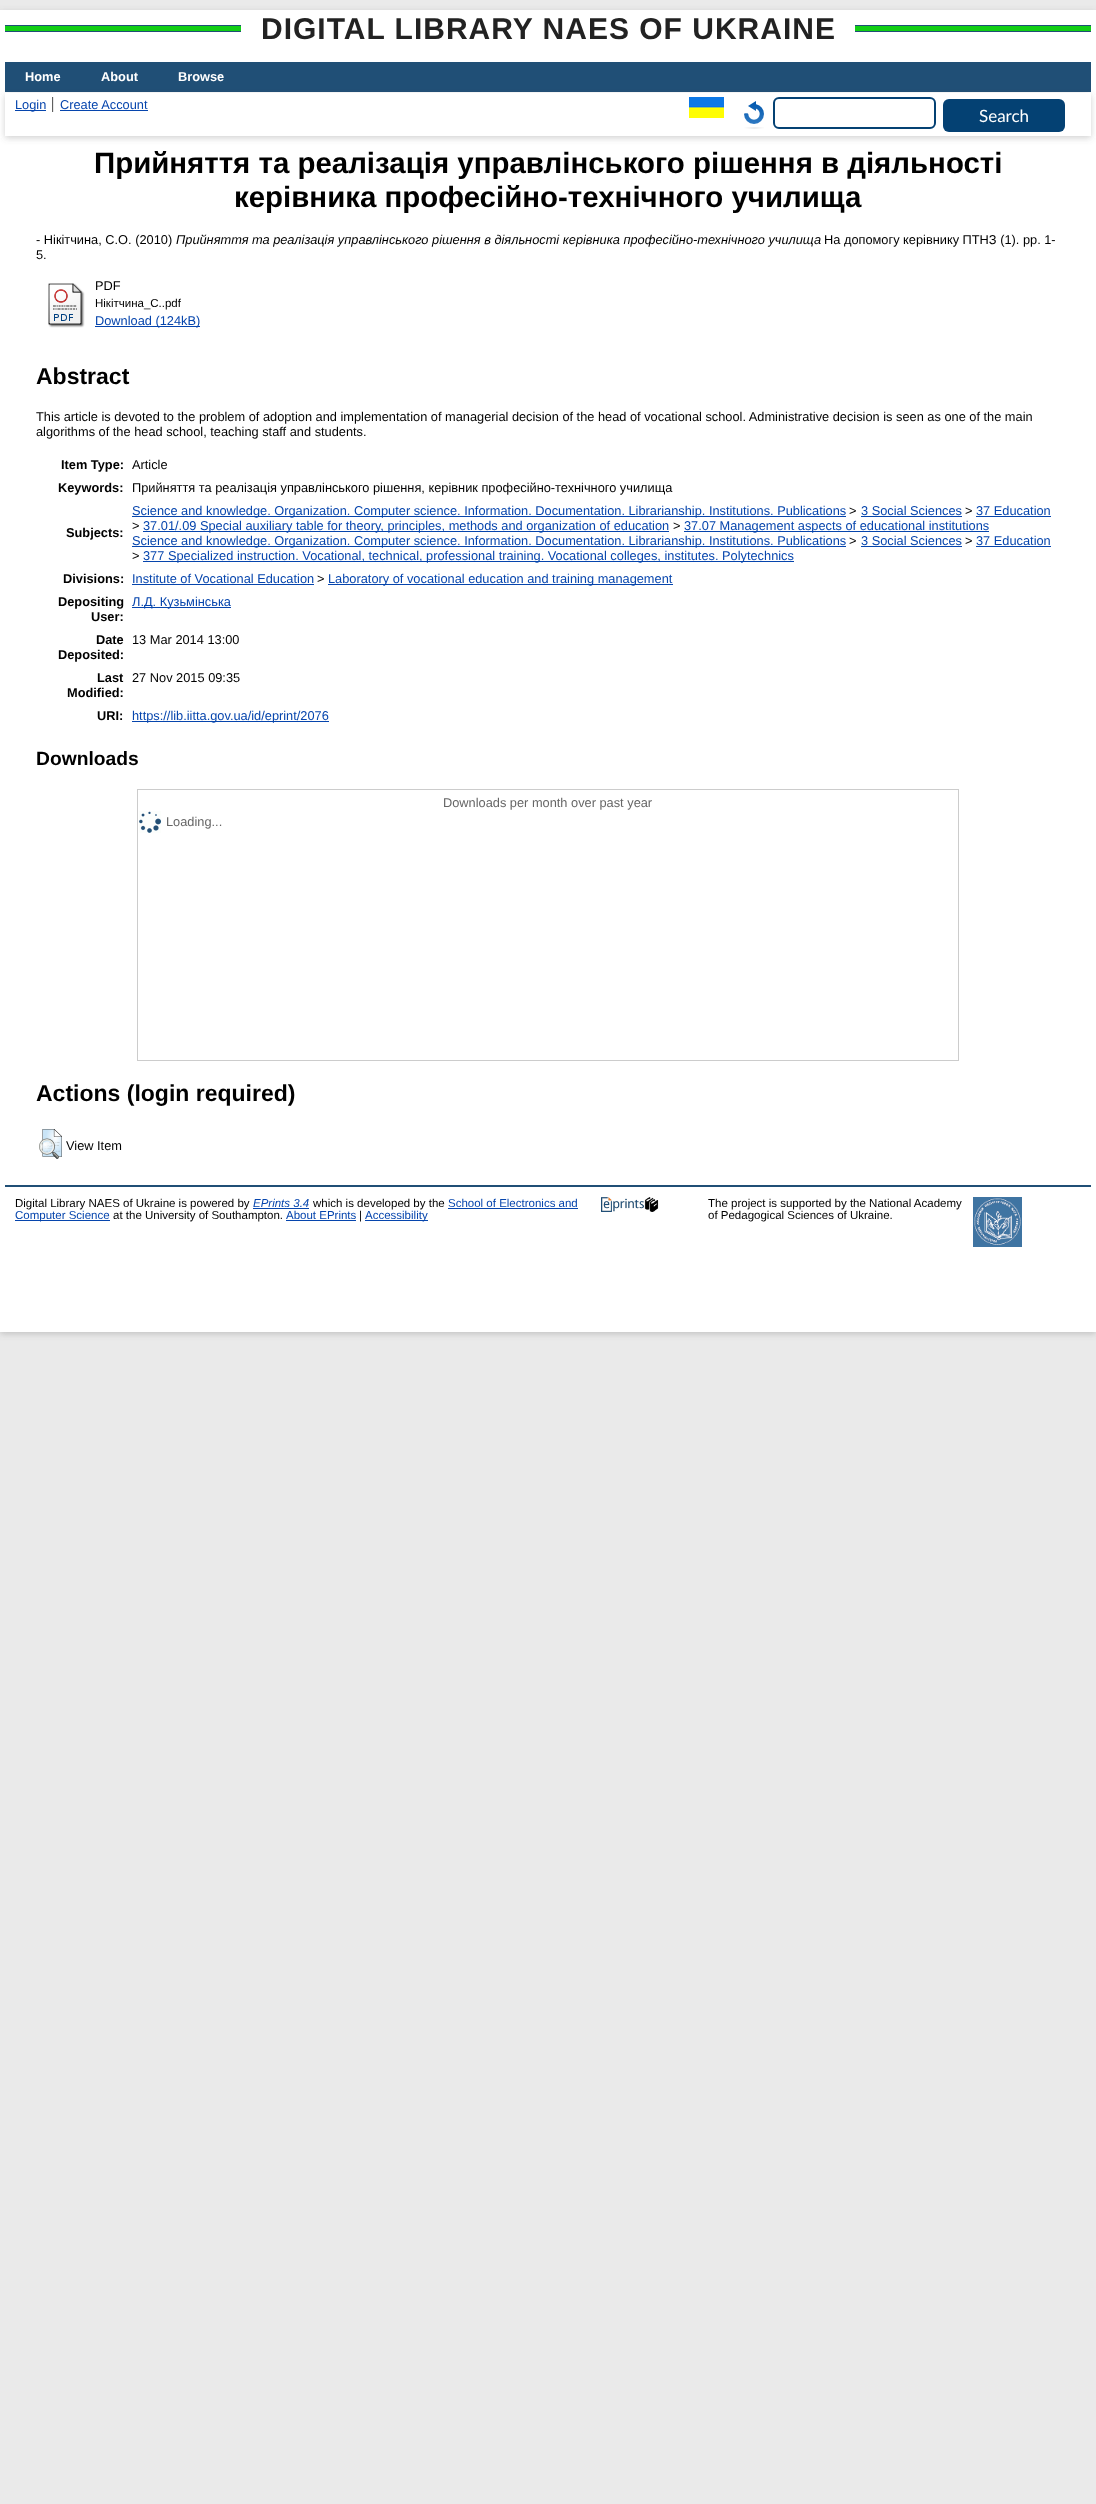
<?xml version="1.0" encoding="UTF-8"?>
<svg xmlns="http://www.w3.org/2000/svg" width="1096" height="2504">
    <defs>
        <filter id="blur1" x="-50%" y="-200%" width="200%" height="500%"><feGaussianBlur stdDeviation="3"/></filter>
    </defs>
    <rect width="100%" height="100%" fill="#EAEAEA"/>
    <rect x="0" y="12" width="1096" height="1322" fill="#646464" fill-opacity="0.3" filter="url(#blur1)"/>
    <rect x="0" y="10" width="1096" height="1322" fill="#FFFFFF"/>
    <rect x="5" y="26" width="236" height="5" fill="#12CE15"/>
    <rect x="5" y="25" width="236" height="1" fill="#204F76"/>
    <rect x="5" y="31" width="236" height="1" fill="#204F76"/>
    <text x="261" y="39" font-family="Liberation Sans" font-size="30" font-weight="700" letter-spacing="1" fill="#222222">DIGITAL LIBRARY NAES OF UKRAINE</text>
    <rect x="855" y="26" width="236" height="5" fill="#12CE15"/>
    <rect x="855" y="25" width="236" height="1" fill="#204F76"/>
    <rect x="855" y="31" width="236" height="1" fill="#204F76"/>
    <rect x="5" y="62" width="1086" height="30" fill="#204F76"/>
    <text x="25" y="81" font-family="Liberation Sans" font-size="12.8" font-weight="700" fill="#FFFFFF">Home</text>
    <text x="101" y="81" font-family="Liberation Sans" font-size="12.8" font-weight="700" fill="#FFFFFF">About</text>
    <text x="178" y="81" font-family="Liberation Sans" font-size="12.8" font-weight="700" fill="#FFFFFF">Browse</text>
    <rect x="5" y="95" width="1086" height="43" fill="#646464" fill-opacity="0.3" filter="url(#blur1)"/>
    <rect x="5" y="93" width="1086" height="43" fill="#FFFFFF"/>
    <rect x="52" y="97" width="1" height="15" fill="#606060"/>
    <rect x="15" y="110" width="31" height="1" fill="#0645AD"/>
    <text x="15" y="109" font-family="Liberation Sans" font-size="12.8" fill="#0645AD">Login</text>
    <rect x="53" y="97" width="1" height="15" fill="#E8E8E8"/>
    <text x="60" y="109" font-family="Liberation Sans" font-size="12.8" fill="#0645AD">Create Account</text>
    <rect x="60" y="110" width="88" height="1" fill="#0645AD"/>
    <image x="689" y="97" width="35" height="21" href="img_01.png"/>
    <image x="744" y="101" width="20" height="28" href="img_02.png"/>
    <rect x="774" y="98" width="161" height="30" rx="5" fill="none" stroke="#044173" stroke-width="2"/>
    <rect x="943" y="99" width="122" height="33" rx="6" fill="#044173"/>
    <text x="979" y="122" font-family="Lato" font-size="17" fill="#FFFFFF">Search</text>
    <text x="94" y="173" font-family="Liberation Sans" font-size="29.45" font-weight="700" fill="#000000">Прийняття та реалізація управлінського рішення в діяльності</text>
    <text x="234" y="207" font-family="Liberation Sans" font-size="29.45" font-weight="700" fill="#000000">керівника професійно-технічного училища</text>
    <text x="36" y="244" font-family="Liberation Sans" font-size="12.8" fill="#000000">- Нікітчина, С.О. (2010)</text>
    <text x="176" y="244" font-family="Liberation Sans" font-size="12.8" font-style="italic" fill="#000000">Прийняття та реалізація управлінського рішення в діяльності керівника професійно-технічного училища</text>
    <text x="824" y="244" font-family="Liberation Sans" font-size="12.8" fill="#000000">На допомогу керівнику ПТНЗ (1). pp. 1-</text>
    <text x="36" y="259" font-family="Liberation Sans" font-size="12.8" fill="#000000">5.</text>
    <image x="48" y="283" width="37" height="45" href="img_03.png"/>
    <text x="95" y="290" font-family="Liberation Sans" font-size="12.8" fill="#000000">PDF</text>
    <text x="95" y="307" font-family="Liberation Sans" font-size="11.5" fill="#000000">Нікітчина_С..pdf</text>
    <rect x="95" y="326" width="105" height="1" fill="#0645AD"/>
    <text x="95" y="325" font-family="Liberation Sans" font-size="12.8" fill="#0645AD">Download (124kB)</text>
    <text x="36" y="384" font-family="Liberation Sans" font-size="23" font-weight="700" fill="#000000">Abstract</text>
    <text font-family="Liberation Sans" font-size="12.8" fill="#000000">
        <tspan x="36" y="421">This article is devoted to the problem of adoption and implementation of managerial decision of the head of vocational school. Administrative decision is seen as one of the main</tspan>
        <tspan x="36" y="436">algorithms of the head school, teaching staff and students.</tspan>
    </text>
    <text x="61" y="469" font-family="Liberation Sans" font-size="12.8" font-weight="700" fill="#000000">Item Type:</text>
    <text x="132" y="469" font-family="Liberation Sans" font-size="12.8" fill="#000000">Article</text>
    <text x="58" y="492" font-family="Liberation Sans" font-size="12.8" font-weight="700" fill="#000000">Keywords:</text>
    <text x="132" y="492" font-family="Liberation Sans" font-size="12.8" fill="#000000">Прийняття та реалізація управлінського рішення, керівник професійно-технічного училища</text>
    <text x="66" y="537" font-family="Liberation Sans" font-size="12.8" font-weight="700" fill="#000000">Subjects:</text>
    <rect x="132" y="516" width="714" height="1" fill="#0645AD"/>
    <text x="132" y="515" font-family="Liberation Sans" font-size="12.8" fill="#0645AD">Science and knowledge. Organization. Computer science. Information. Documentation. Librarianship. Institutions. Publications</text>
    <text x="849" y="515" font-family="Liberation Sans" font-size="12.8" fill="#000000">&gt;</text>
    <text x="861" y="515" font-family="Liberation Sans" font-size="12.8" fill="#0645AD">3 Social Sciences</text>
    <rect x="861" y="516" width="101" height="1" fill="#0645AD"/>
    <text x="965" y="515" font-family="Liberation Sans" font-size="12.8" fill="#000000">&gt;</text>
    <text x="976" y="515" font-family="Liberation Sans" font-size="12.8" fill="#0645AD">37 Education</text>
    <rect x="976" y="516" width="75" height="1" fill="#0645AD"/>
    <text x="132" y="530" font-family="Liberation Sans" font-size="12.8" fill="#000000">&gt;</text>
    <rect x="143" y="531" width="526" height="1" fill="#0645AD"/>
    <text x="143" y="530" font-family="Liberation Sans" font-size="12.8" fill="#0645AD">37.01/.09 Special auxiliary table for theory, principles, methods and organization of education</text>
    <text x="673" y="530" font-family="Liberation Sans" font-size="12.8" fill="#000000">&gt;</text>
    <rect x="684" y="531" width="305" height="1" fill="#0645AD"/>
    <text x="684" y="530" font-family="Liberation Sans" font-size="12.8" fill="#0645AD">37.07 Management aspects of educational institutions</text>
    <rect x="132" y="546" width="714" height="1" fill="#0645AD"/>
    <text x="132" y="545" font-family="Liberation Sans" font-size="12.8" fill="#0645AD">Science and knowledge. Organization. Computer science. Information. Documentation. Librarianship. Institutions. Publications</text>
    <text x="849" y="545" font-family="Liberation Sans" font-size="12.8" fill="#000000">&gt;</text>
    <text x="861" y="545" font-family="Liberation Sans" font-size="12.8" fill="#0645AD">3 Social Sciences</text>
    <rect x="861" y="546" width="101" height="1" fill="#0645AD"/>
    <text x="965" y="545" font-family="Liberation Sans" font-size="12.8" fill="#000000">&gt;</text>
    <text x="976" y="545" font-family="Liberation Sans" font-size="12.8" fill="#0645AD">37 Education</text>
    <rect x="976" y="546" width="75" height="1" fill="#0645AD"/>
    <text x="132" y="560" font-family="Liberation Sans" font-size="12.8" fill="#000000">&gt;</text>
    <rect x="143" y="561" width="651" height="1" fill="#0645AD"/>
    <text x="143" y="560" font-family="Liberation Sans" font-size="12.8" fill="#0645AD">377 Specialized instruction. Vocational, technical, professional training. Vocational colleges, institutes. Polytechnics</text>
    <text x="63" y="583" font-family="Liberation Sans" font-size="12.8" font-weight="700" fill="#000000">Divisions:</text>
    <text x="132" y="583" font-family="Liberation Sans" font-size="12.8" fill="#0645AD">Institute of Vocational Education</text>
    <rect x="132" y="584" width="182" height="1" fill="#0645AD"/>
    <text x="317" y="583" font-family="Liberation Sans" font-size="12.8" fill="#000000">&gt;</text>
    <rect x="328" y="584" width="345" height="1" fill="#0645AD"/>
    <text x="328" y="583" font-family="Liberation Sans" font-size="12.8" fill="#0645AD">Laboratory of vocational education and training management</text>
    <text x="58" y="606" font-family="Liberation Sans" font-size="12.8" font-weight="700" fill="#000000">Depositing</text>
    <text x="91" y="621" font-family="Liberation Sans" font-size="12.8" font-weight="700" fill="#000000">User:</text>
    <rect x="132" y="607" width="99" height="1" fill="#0645AD"/>
    <text x="132" y="606" font-family="Liberation Sans" font-size="12.8" fill="#0645AD">Л.Д. Кузьмінська</text>
    <text x="96" y="644" font-family="Liberation Sans" font-size="12.8" font-weight="700" fill="#000000">Date</text>
    <text x="58" y="659" font-family="Liberation Sans" font-size="12.8" font-weight="700" fill="#000000">Deposited:</text>
    <text x="132" y="644" font-family="Liberation Sans" font-size="12.8" fill="#000000">13 Mar 2014 13:00</text>
    <text x="97" y="682" font-family="Liberation Sans" font-size="12.8" font-weight="700" fill="#000000">Last</text>
    <text x="67" y="697" font-family="Liberation Sans" font-size="12.8" font-weight="700" fill="#000000">Modified:</text>
    <text x="132" y="682" font-family="Liberation Sans" font-size="12.8" fill="#000000">27 Nov 2015 09:35</text>
    <text x="97" y="720" font-family="Liberation Sans" font-size="12.8" font-weight="700" fill="#000000">URI:</text>
    <rect x="132" y="721" width="197" height="1" fill="#0645AD"/>
    <text x="132" y="720" font-family="Liberation Sans" font-size="12.8" fill="#0645AD">https://lib.iitta.gov.ua/id/eprint/2076</text>
    <text x="36" y="765" font-family="Liberation Sans" font-size="19.25" font-weight="700" fill="#000000">Downloads</text>
    <rect x="137.5" y="789.5" width="821" height="271" fill="none" stroke="#CCCCCC"/>
    <text x="443" y="807" font-family="Liberation Sans" font-size="12.8" fill="#666666">Downloads per month over past year</text>
    <image x="139" y="811" width="22" height="22" href="img_04.png"/>
    <text x="166" y="826" font-family="Liberation Sans" font-size="12.8" fill="#666666">Loading...</text>
    <text x="36" y="1101" font-family="Liberation Sans" font-size="23" font-weight="700" fill="#000000">Actions (login required)</text>
    <image x="39" y="1129" width="23" height="30" href="img_05.png"/>
    <text x="66" y="1150" font-family="Liberation Sans" font-size="12.8" fill="#000000">View Item</text>
    <rect x="5" y="1185" width="1086" height="2" fill="#204F76"/>
    <text x="15" y="1207" font-family="Liberation Sans" font-size="11.5" fill="#000000">Digital Library NAES of Ukraine is powered by</text>
    <text x="253" y="1207" font-family="Liberation Sans" font-size="11.5" font-style="italic" fill="#0645AD">EPrints 3.4</text>
    <rect x="253" y="1208" width="56" height="1" fill="#0645AD"/>
    <text x="313" y="1207" font-family="Liberation Sans" font-size="11.5" fill="#000000">which is developed by the</text>
    <text x="448" y="1207" font-family="Liberation Sans" font-size="11.5" fill="#0645AD">School of Electronics and</text>
    <rect x="448" y="1208" width="130" height="1" fill="#0645AD"/>
    <rect x="15" y="1220" width="95" height="1" fill="#0645AD"/>
    <text x="15" y="1219" font-family="Liberation Sans" font-size="11.5" fill="#0645AD">Computer Science</text>
    <text x="113" y="1219" font-family="Liberation Sans" font-size="11.5" fill="#000000">at the University of Southampton.</text>
    <text x="286" y="1219" font-family="Liberation Sans" font-size="11.5" fill="#0645AD">About EPrints</text>
    <rect x="286" y="1220" width="70" height="1" fill="#0645AD"/>
    <text x="359" y="1219" font-family="Liberation Sans" font-size="11.5" fill="#000000">|</text>
    <rect x="365" y="1220" width="63" height="1" fill="#0645AD"/>
    <text x="365" y="1219" font-family="Liberation Sans" font-size="11.5" fill="#0645AD">Accessibility</text>
    <image x="601" y="1197" width="43" height="15" href="img_06.png"/>
    <image x="644" y="1197" width="15" height="15" href="img_07.png"/>
    <text font-family="Liberation Sans" font-size="11.5" fill="#000000">
        <tspan x="708" y="1207">The project is supported by the National Academy</tspan>
        <tspan x="708" y="1219">of Pedagogical Sciences of Ukraine.</tspan>
    </text>
    <rect x="973" y="1197" width="49" height="50" fill="#3F74A2"/>
    <image x="974" y="1198" width="47" height="47" href="img_08.png"/>
</svg>
